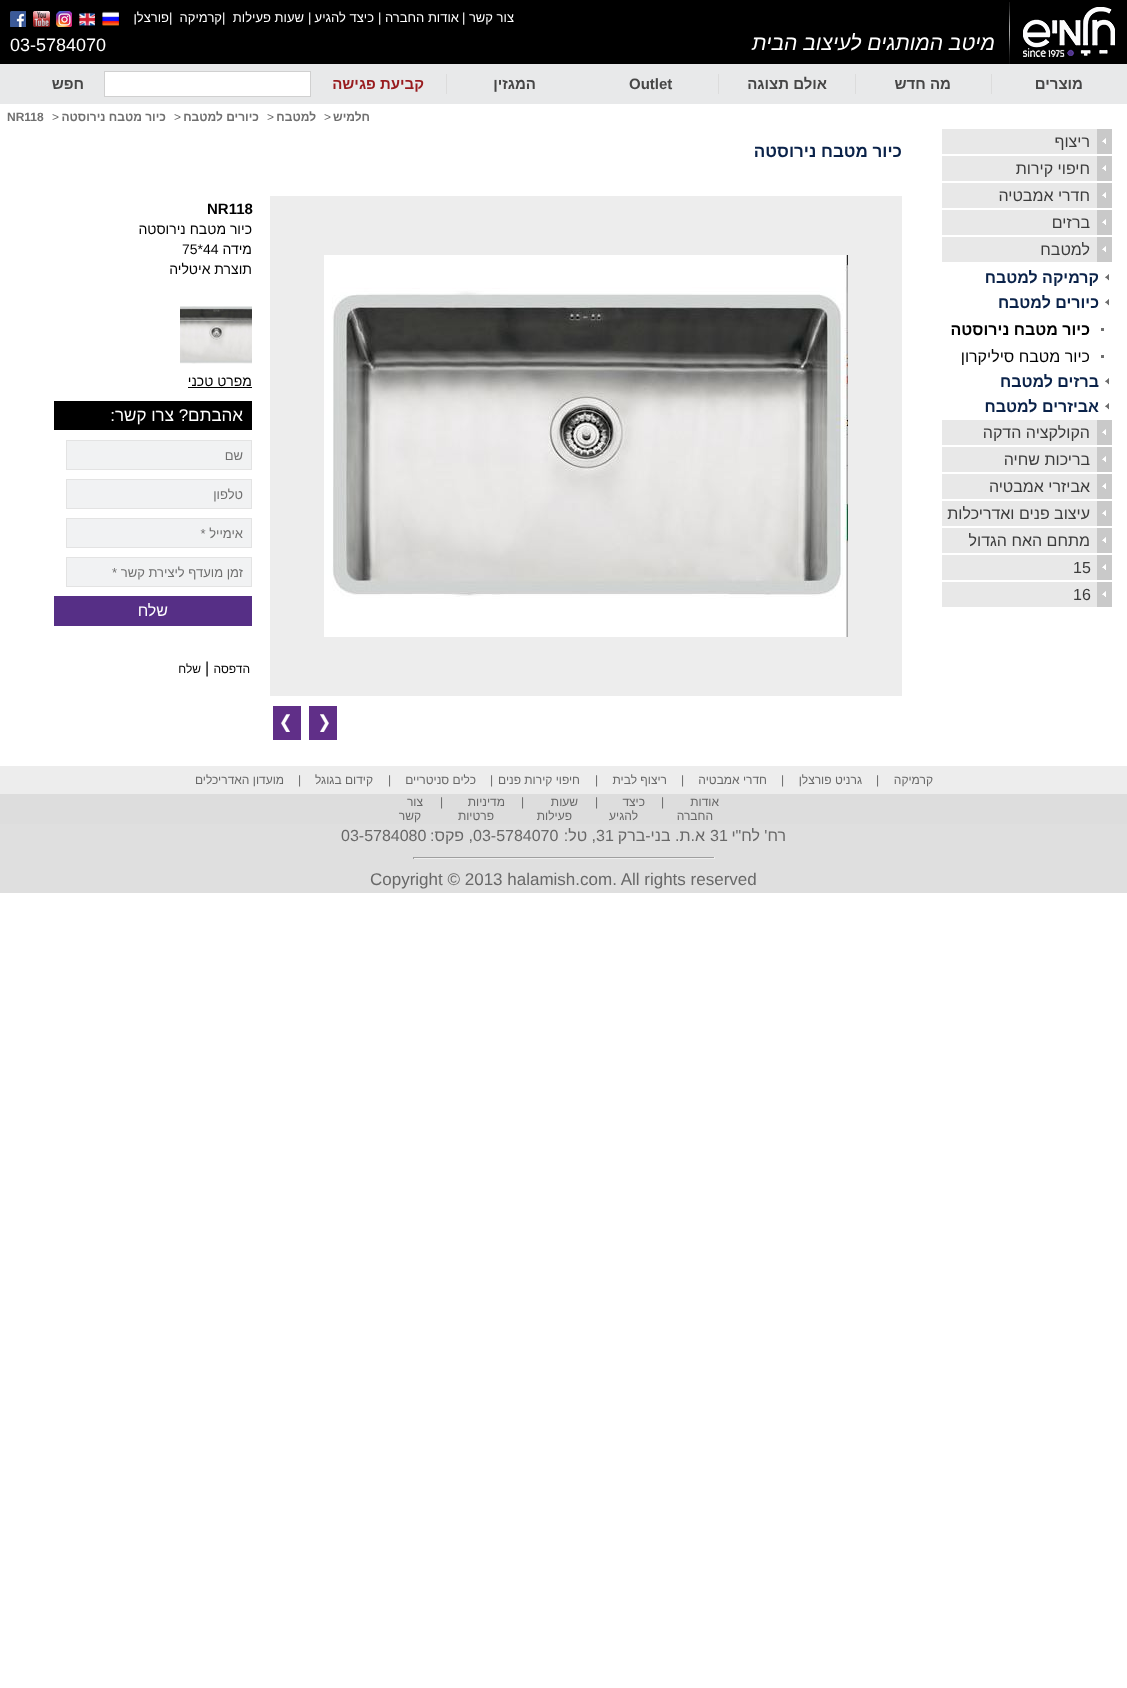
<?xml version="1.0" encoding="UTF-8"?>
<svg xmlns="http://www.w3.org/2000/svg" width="1127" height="1688">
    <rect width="100%" height="100%" fill="#FFFFFF"/>
    <rect x="0" y="0" width="1127" height="64" fill="#000000"/>
    <image x="1023" y="7" width="92" height="50" href="img_01.png"/>
    <image x="1009" y="2" width="1" height="62" href="img_02.png"/>
    <text x="514" y="22" font-family="Liberation Sans" font-size="13" direction="rtl" fill="#FFFFFF">צור קשר</text>
    <text x="462" y="22" font-family="Liberation Sans" font-size="13" fill="#FFFFFF">|</text>
    <text x="459" y="22" font-family="Liberation Sans" font-size="13" direction="rtl" fill="#FFFFFF">אודות החברה</text>
    <text x="378" y="22" font-family="Liberation Sans" font-size="13" fill="#FFFFFF">|</text>
    <text x="374" y="22" font-family="Liberation Sans" font-size="13" direction="rtl" fill="#FFFFFF">כיצד להגיע</text>
    <text x="308" y="22" font-family="Liberation Sans" font-size="13" fill="#FFFFFF">|</text>
    <text x="304" y="22" font-family="Liberation Sans" font-size="13" direction="rtl" fill="#FFFFFF">שעות פעילות</text>
    <text x="222" y="22" font-family="Liberation Sans" font-size="13" fill="#FFFFFF">|</text>
    <text x="222" y="22" font-family="Liberation Sans" font-size="13" direction="rtl" fill="#FFFFFF">קרמיקה</text>
    <text x="169" y="22" font-family="Liberation Sans" font-size="13" fill="#FFFFFF">|</text>
    <text x="169" y="22" font-family="Liberation Sans" font-size="13" direction="rtl" fill="#FFFFFF">פורצלן</text>
    <image x="102" y="11" width="17" height="15" href="img_03.png"/>
    <image x="79" y="12" width="16" height="14" href="img_04.png"/>
    <image x="56" y="11" width="16" height="16" href="img_05.png"/>
    <image x="33" y="11" width="17" height="16" href="img_06.png"/>
    <image x="10" y="11" width="16" height="16" href="img_07.png"/>
    <text x="995" y="50" font-family="Liberation Sans" font-size="21" font-style="italic" direction="rtl" fill="#FFFFFF">מיטב המותגים לעיצוב הבית</text>
    <text x="10" y="51" font-family="Liberation Sans" font-size="18" fill="#FFFFFF">03-5784070</text>
    <rect x="0" y="64" width="1127" height="40" fill="#E8E9EA"/>
    <text x="1083" y="89" font-family="Liberation Sans" font-size="15" font-weight="700" direction="rtl" fill="#464646">מוצרים</text>
    <rect x="991" y="74" width="1" height="20" fill="#DCDCDC"/>
    <text x="951" y="89" font-family="Liberation Sans" font-size="15" font-weight="700" direction="rtl" fill="#464646">מה חדש</text>
    <rect x="855" y="74" width="1" height="20" fill="#DCDCDC"/>
    <text x="827" y="89" font-family="Liberation Sans" font-size="15" font-weight="700" direction="rtl" fill="#464646">אולם תצוגה</text>
    <rect x="718" y="74" width="1" height="20" fill="#DCDCDC"/>
    <text x="629" y="89" font-family="Liberation Sans" font-size="15" font-weight="700" fill="#464646">Outlet</text>
    <text x="536" y="89" font-family="Liberation Sans" font-size="15" font-weight="700" direction="rtl" fill="#464646">המגזין</text>
    <rect x="446" y="74" width="1" height="20" fill="#DCDCDC"/>
    <text x="424" y="89" font-family="Liberation Sans" font-size="15" font-weight="700" direction="rtl" fill="#981B1E">קביעת פגישה</text>
    <rect x="104.5" y="71.5" width="206" height="25" fill="#FFFFFF" stroke="#D0D0D0"/>
    <text x="84" y="89" font-family="Liberation Sans" font-size="15" font-weight="700" direction="rtl" fill="#464646">חפש</text>
    <text x="370" y="121" font-family="Liberation Sans" font-size="12" font-weight="700" direction="rtl" fill="#707070">חלמיש</text>
    <text x="324" y="121" font-family="Liberation Sans" font-size="12" fill="#686868">&gt;</text>
    <text x="316" y="121" font-family="Liberation Sans" font-size="12" font-weight="700" direction="rtl" fill="#707070">למטבח</text>
    <text x="267" y="121" font-family="Liberation Sans" font-size="12" fill="#686868">&gt;</text>
    <text x="259" y="121" font-family="Liberation Sans" font-size="12" font-weight="700" direction="rtl" fill="#707070">כיורים למטבח</text>
    <text x="174" y="121" font-family="Liberation Sans" font-size="12" fill="#686868">&gt;</text>
    <text x="166" y="121" font-family="Liberation Sans" font-size="12" font-weight="700" direction="rtl" fill="#707070">כיור מטבח נירוסטה</text>
    <text x="52" y="121" font-family="Liberation Sans" font-size="12" fill="#686868">&gt;</text>
    <text x="7" y="121" font-family="Liberation Sans" font-size="12" font-weight="700" fill="#707070">NR118</text>
    <rect x="1097" y="129" width="15" height="25" fill="#C9C9C9"/>
    <image x="1102" y="138" width="4" height="6" href="img_08.png"/>
    <rect x="942" y="129" width="155" height="25" fill="#E8E8E8"/>
    <text x="1090" y="147" font-family="Liberation Sans" font-size="16" direction="rtl" fill="#3C3C3C">ריצוף</text>
    <rect x="1097" y="156" width="15" height="25" fill="#C9C9C9"/>
    <image x="1102" y="165" width="4" height="6" href="img_08.png"/>
    <rect x="942" y="156" width="155" height="25" fill="#E8E8E8"/>
    <text x="1090" y="174" font-family="Liberation Sans" font-size="16" direction="rtl" fill="#3C3C3C">חיפוי קירות</text>
    <rect x="1097" y="183" width="15" height="25" fill="#C9C9C9"/>
    <image x="1102" y="192" width="4" height="6" href="img_08.png"/>
    <rect x="942" y="183" width="155" height="25" fill="#E8E8E8"/>
    <text x="1090" y="201" font-family="Liberation Sans" font-size="16" direction="rtl" fill="#3C3C3C">חדרי אמבטיה</text>
    <rect x="1097" y="210" width="15" height="25" fill="#C9C9C9"/>
    <image x="1102" y="219" width="4" height="6" href="img_08.png"/>
    <rect x="942" y="210" width="155" height="25" fill="#E8E8E8"/>
    <text x="1090" y="228" font-family="Liberation Sans" font-size="16" direction="rtl" fill="#3C3C3C">ברזים</text>
    <rect x="1097" y="237" width="15" height="25" fill="#C9C9C9"/>
    <image x="1102" y="246" width="4" height="6" href="img_08.png"/>
    <rect x="942" y="237" width="155" height="25" fill="#E8E8E8"/>
    <text x="1090" y="255" font-family="Liberation Sans" font-size="16" direction="rtl" fill="#3C3C3C">למטבח</text>
    <image x="1105" y="274" width="4" height="7" href="img_09.png"/>
    <text x="1099" y="283" font-family="Liberation Sans" font-size="16" font-weight="700" direction="rtl" fill="#0A2249">קרמיקה למטבח</text>
    <image x="1105" y="299" width="4" height="7" href="img_09.png"/>
    <text x="1099" y="308" font-family="Liberation Sans" font-size="16" font-weight="700" direction="rtl" fill="#0A2249">כיורים למטבח</text>
    <rect x="1101" y="328" width="3" height="3" fill="#6E6E6E"/>
    <text x="1090" y="335" font-family="Liberation Sans" font-size="16" font-weight="700" direction="rtl" fill="#000000">כיור מטבח נירוסטה</text>
    <rect x="1101" y="355" width="3" height="3" fill="#6E6E6E"/>
    <text x="1090" y="362" font-family="Liberation Sans" font-size="16" direction="rtl" fill="#000000">כיור מטבח סיליקרון</text>
    <image x="1105" y="378" width="4" height="7" href="img_09.png"/>
    <text x="1099" y="387" font-family="Liberation Sans" font-size="16" font-weight="700" direction="rtl" fill="#0A2249">ברזים למטבח</text>
    <image x="1105" y="403" width="4" height="7" href="img_09.png"/>
    <text x="1099" y="412" font-family="Liberation Sans" font-size="16" font-weight="700" direction="rtl" fill="#0A2249">אביזרים למטבח</text>
    <rect x="1097" y="420" width="15" height="25" fill="#C9C9C9"/>
    <image x="1102" y="429" width="4" height="6" href="img_08.png"/>
    <rect x="942" y="420" width="155" height="25" fill="#E8E8E8"/>
    <text x="1090" y="438" font-family="Liberation Sans" font-size="16" direction="rtl" fill="#3C3C3C">הקולקציה הדקה</text>
    <rect x="1097" y="447" width="15" height="25" fill="#C9C9C9"/>
    <image x="1102" y="456" width="4" height="6" href="img_08.png"/>
    <rect x="942" y="447" width="155" height="25" fill="#E8E8E8"/>
    <text x="1090" y="465" font-family="Liberation Sans" font-size="16" direction="rtl" fill="#3C3C3C">בריכות שחיה</text>
    <rect x="1097" y="474" width="15" height="25" fill="#C9C9C9"/>
    <image x="1102" y="483" width="4" height="6" href="img_08.png"/>
    <rect x="942" y="474" width="155" height="25" fill="#E8E8E8"/>
    <text x="1090" y="492" font-family="Liberation Sans" font-size="16" direction="rtl" fill="#3C3C3C">אביזרי אמבטיה</text>
    <rect x="1097" y="501" width="15" height="25" fill="#C9C9C9"/>
    <image x="1102" y="510" width="4" height="6" href="img_08.png"/>
    <rect x="942" y="501" width="155" height="25" fill="#E8E8E8"/>
    <text x="1090" y="519" font-family="Liberation Sans" font-size="16" direction="rtl" fill="#3C3C3C">עיצוב פנים ואדריכלות</text>
    <rect x="1097" y="528" width="15" height="25" fill="#C9C9C9"/>
    <image x="1102" y="537" width="4" height="6" href="img_08.png"/>
    <rect x="942" y="528" width="155" height="25" fill="#E8E8E8"/>
    <text x="1090" y="546" font-family="Liberation Sans" font-size="16" direction="rtl" fill="#3C3C3C">מתחם האח הגדול</text>
    <rect x="1097" y="555" width="15" height="25" fill="#C9C9C9"/>
    <image x="1102" y="564" width="4" height="6" href="img_08.png"/>
    <rect x="942" y="555" width="155" height="25" fill="#E8E8E8"/>
    <text x="1073" y="573" font-family="Liberation Sans" font-size="16" fill="#3C3C3C">15</text>
    <rect x="1097" y="582" width="15" height="25" fill="#C9C9C9"/>
    <image x="1102" y="591" width="4" height="6" href="img_08.png"/>
    <rect x="942" y="582" width="155" height="25" fill="#E8E8E8"/>
    <text x="1073" y="600" font-family="Liberation Sans" font-size="16" fill="#3C3C3C">16</text>
    <text x="902" y="157" font-family="Liberation Sans" font-size="17" font-weight="700" direction="rtl" fill="#0A2249">כיור מטבח נירוסטה</text>
    <rect x="270" y="196" width="632" height="500" fill="#EDEDED"/>
    <image x="324" y="255" width="524" height="382" href="img_10.png"/>
    <text x="207" y="214" font-family="Liberation Sans" font-size="15" font-weight="700" fill="#000000">NR118</text>
    <text font-family="Liberation Sans" font-size="14" direction="rtl" fill="#000000">
        <tspan x="252" y="234">כיור מטבח נירוסטה</tspan>
        <tspan x="252" y="254">מידה</tspan>
    </text>
    <text x="182" y="254" font-family="Liberation Sans" font-size="14" fill="#000000">75*44</text>
    <text x="252" y="274" font-family="Liberation Sans" font-size="14" direction="rtl" fill="#000000">תוצרת איטליה</text>
    <image x="180" y="306" width="72" height="58" href="img_11.png"/>
    <text x="252" y="386" font-family="Liberation Sans" font-size="14" direction="rtl" fill="#000000">מפרט טכני</text>
    <rect x="188" y="387" width="64" height="1" fill="#000000"/>
    <rect x="54" y="401" width="198" height="29" fill="#000000"/>
    <text x="243" y="421" font-family="Liberation Sans" font-size="17" direction="rtl" fill="#FFFFFF">אהבתם? צרו קשר:</text>
    <rect x="66.5" y="440.5" width="185" height="29" fill="#F1F2F3" stroke="#E3E3E3"/>
    <text x="243" y="460" font-family="Liberation Sans" font-size="13" direction="rtl" fill="#707070">שם</text>
    <rect x="66.5" y="479.5" width="185" height="29" fill="#F1F2F3" stroke="#E3E3E3"/>
    <text x="243" y="499" font-family="Liberation Sans" font-size="13" direction="rtl" fill="#707070">טלפון</text>
    <rect x="66.5" y="518.5" width="185" height="29" fill="#F1F2F3" stroke="#E3E3E3"/>
    <text x="243" y="538" font-family="Liberation Sans" font-size="13" direction="rtl" fill="#707070">אימייל *</text>
    <rect x="66.5" y="557.5" width="185" height="29" fill="#F1F2F3" stroke="#E3E3E3"/>
    <text x="243" y="577" font-family="Liberation Sans" font-size="13" direction="rtl" fill="#707070">זמן מועדף ליצירת קשר *</text>
    <rect x="54" y="596" width="198" height="30" fill="#562F86"/>
    <text x="168" y="616" font-family="Liberation Sans" font-size="16" direction="rtl" fill="#FFFFFF">שלח</text>
    <text x="250" y="673" font-family="Liberation Sans" font-size="12" direction="rtl" fill="#000000">הדפסה</text>
    <text x="205" y="673" font-family="Liberation Sans" font-size="16" fill="#000000">|</text>
    <text x="201" y="673" font-family="Liberation Sans" font-size="12" direction="rtl" fill="#000000">שלח</text>
    <rect x="309" y="706" width="28" height="34" fill="#602F88"/>
    <image x="320" y="714" width="9" height="18" href="img_12.png"/>
    <rect x="273" y="706" width="28" height="34" fill="#602F88"/>
    <image x="281" y="714" width="9" height="18" href="img_13.png"/>
    <rect x="0" y="824" width="1127" height="69" fill="#DFDFDF"/>
    <rect x="0" y="766" width="1127" height="28" fill="#EDEDED"/>
    <text x="933" y="784" font-family="Liberation Sans" font-size="12" direction="rtl" fill="#686868">קרמיקה</text>
    <text x="876" y="784" font-family="Liberation Sans" font-size="12" fill="#686868">|</text>
    <text x="862" y="784" font-family="Liberation Sans" font-size="12" direction="rtl" fill="#686868">גרניט פורצלן</text>
    <text x="781" y="784" font-family="Liberation Sans" font-size="12" fill="#686868">|</text>
    <text x="767" y="784" font-family="Liberation Sans" font-size="12" direction="rtl" fill="#686868">חדרי אמבטיה</text>
    <text x="681" y="784" font-family="Liberation Sans" font-size="12" fill="#686868">|</text>
    <text x="667" y="784" font-family="Liberation Sans" font-size="12" direction="rtl" fill="#686868">ריצוף לבית</text>
    <text x="595" y="784" font-family="Liberation Sans" font-size="12" fill="#686868">|</text>
    <text x="580" y="784" font-family="Liberation Sans" font-size="12" direction="rtl" fill="#686868">חיפוי קירות פנים</text>
    <text x="490" y="784" font-family="Liberation Sans" font-size="12" fill="#686868">|</text>
    <text x="476" y="784" font-family="Liberation Sans" font-size="12" direction="rtl" fill="#686868">כלים סניטריים</text>
    <text x="388" y="784" font-family="Liberation Sans" font-size="12" fill="#686868">|</text>
    <text x="373" y="784" font-family="Liberation Sans" font-size="12" direction="rtl" fill="#686868">קידום בגוגל</text>
    <text x="298" y="784" font-family="Liberation Sans" font-size="12" fill="#686868">|</text>
    <text x="284" y="784" font-family="Liberation Sans" font-size="12" direction="rtl" fill="#686868">מועדון האדריכלים</text>
    <rect x="0" y="794" width="1127" height="30" fill="#DDDDDD"/>
    <text x="719" y="806" font-family="Liberation Sans" font-size="12" direction="rtl" fill="#686868">אודות</text>
    <text x="713" y="820" font-family="Liberation Sans" font-size="12" direction="rtl" fill="#686868">החברה</text>
    <text x="661" y="806" font-family="Liberation Sans" font-size="12" fill="#686868">|</text>
    <text x="645" y="806" font-family="Liberation Sans" font-size="12" direction="rtl" fill="#686868">כיצד</text>
    <text x="638" y="820" font-family="Liberation Sans" font-size="12" direction="rtl" fill="#686868">להגיע</text>
    <text x="595" y="806" font-family="Liberation Sans" font-size="12" fill="#686868">|</text>
    <text x="578" y="806" font-family="Liberation Sans" font-size="12" direction="rtl" fill="#686868">שעות</text>
    <text x="572" y="820" font-family="Liberation Sans" font-size="12" direction="rtl" fill="#686868">פעילות</text>
    <text x="521" y="806" font-family="Liberation Sans" font-size="12" fill="#686868">|</text>
    <text x="505" y="806" font-family="Liberation Sans" font-size="12" direction="rtl" fill="#686868">מדיניות</text>
    <text x="494" y="820" font-family="Liberation Sans" font-size="12" direction="rtl" fill="#686868">פרטיות</text>
    <text x="440" y="806" font-family="Liberation Sans" font-size="12" fill="#686868">|</text>
    <text x="423" y="806" font-family="Liberation Sans" font-size="12" direction="rtl" fill="#686868">צור</text>
    <text x="421" y="820" font-family="Liberation Sans" font-size="12" direction="rtl" fill="#686868">קשר</text>
    <text x="786" y="841" font-family="Liberation Sans" font-size="16" direction="rtl" fill="#686868">רח' לח"י</text>
    <text x="710" y="841" font-family="Liberation Sans" font-size="16" fill="#686868">31</text>
    <text x="705" y="841" font-family="Liberation Sans" font-size="16" direction="rtl" fill="#686868">א.ת. בני-ברק</text>
    <text x="596" y="841" font-family="Liberation Sans" font-size="16" fill="#686868">31</text>
    <text x="596" y="841" font-family="Liberation Sans" font-size="16" direction="rtl" fill="#686868">, טל:</text>
    <text x="473" y="841" font-family="Liberation Sans" font-size="16" fill="#686868">03-5784070</text>
    <text x="473" y="841" font-family="Liberation Sans" font-size="16" direction="rtl" fill="#686868">, פקס:</text>
    <text x="341" y="841" font-family="Liberation Sans" font-size="16" fill="#686868">03-5784080</text>
    <rect x="413" y="857" width="302" height="1" fill="#9F9F9F"/>
    <rect x="714" y="857" width="1" height="2" fill="#EEEEEE"/>
    <rect x="413" y="858" width="302" height="1" fill="#EEEEEE"/>
    <rect x="413" y="857" width="1" height="2" fill="#9F9F9F"/>
    <text x="370" y="885" font-family="Liberation Sans" font-size="17" fill="#686868">Copyright © 2013 halamish.com. All rights reserved</text>
</svg>
